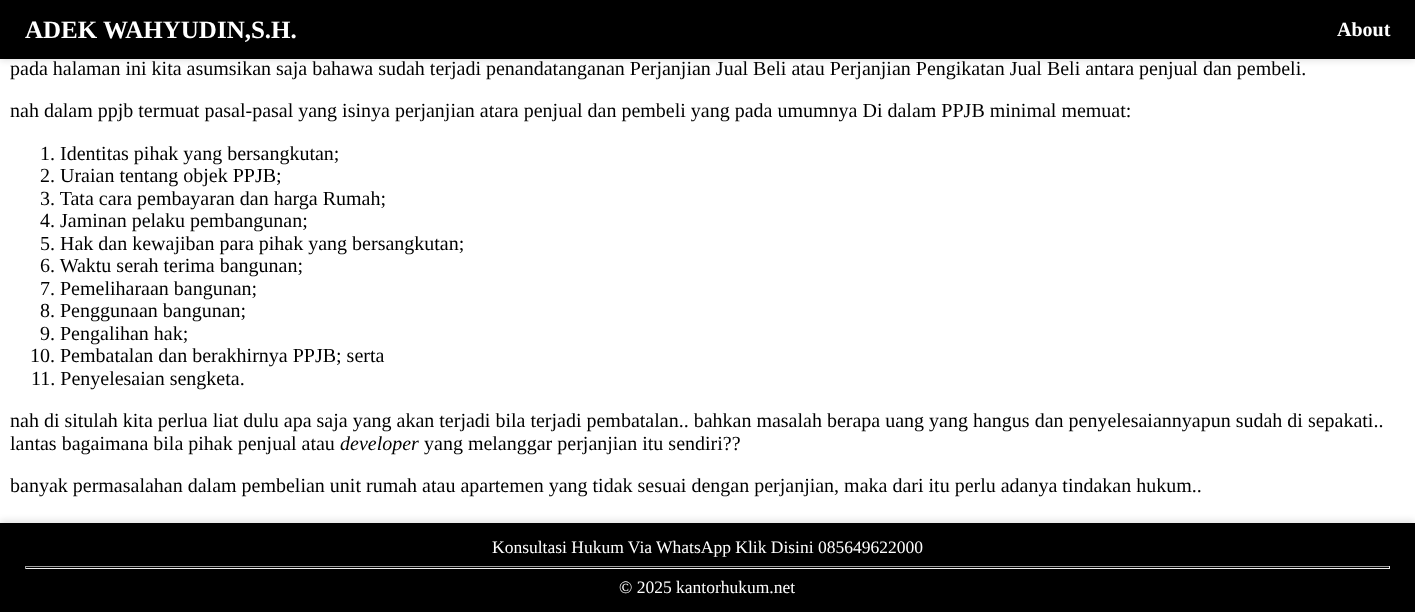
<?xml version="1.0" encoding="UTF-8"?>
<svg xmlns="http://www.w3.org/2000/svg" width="1415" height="612">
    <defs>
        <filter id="blur1" x="-50%" y="-200%" width="200%" height="500%"><feGaussianBlur stdDeviation="3"/></filter>
    </defs>
    <rect width="100%" height="100%" fill="#FFFFFF"/>
    <rect x="0" y="3" width="1415" height="58" fill="#000000" fill-opacity="0.1" filter="url(#blur1)"/>
    <rect x="0" y="0" width="1415" height="59" fill="#000000"/>
    <text x="25" y="38" font-family="Liberation Serif" font-size="25" font-weight="700" fill="#FFFFFF">ADEK WAHYUDIN,S.H.</text>
    <text x="1337" y="36" font-family="Liberation Serif" font-size="20" font-weight="700" fill="#FFFFFF">About</text>
    <text x="10" y="75" font-family="Liberation Serif" font-size="20" fill="#000000">pada halaman ini kita asumsikan saja bahawa sudah terjadi penandatanganan Perjanjian Jual Beli atau Perjanjian Pengikatan Jual Beli antara penjual dan pembeli.</text>
    <text x="10" y="117" font-family="Liberation Serif" font-size="20" fill="#000000">nah dalam ppjb termuat pasal-pasal yang isinya perjanjian atara penjual dan pembeli yang pada umumnya Di dalam PPJB minimal memuat:</text>
    <text font-family="Liberation Serif" font-size="20" fill="#000000">
        <tspan x="40" y="160">1. Identitas pihak yang bersangkutan;</tspan>
        <tspan x="40" y="182">2. Uraian tentang objek PPJB;</tspan>
        <tspan x="40" y="205">3. Tata cara pembayaran dan harga Rumah;</tspan>
        <tspan x="40" y="227">4. Jaminan pelaku pembangunan;</tspan>
        <tspan x="40" y="250">5. Hak dan kewajiban para pihak yang bersangkutan;</tspan>
        <tspan x="40" y="272">6. Waktu serah terima bangunan;</tspan>
        <tspan x="40" y="295">7. Pemeliharaan bangunan;</tspan>
        <tspan x="40" y="317">8. Penggunaan bangunan;</tspan>
        <tspan x="40" y="340">9. Pengalihan hak;</tspan>
    </text>
    <text x="30" y="362" font-family="Liberation Serif" font-size="20" fill="#000000">10. Pembatalan dan berakhirnya PPJB; serta</text>
    <text x="31" y="385" font-family="Liberation Serif" font-size="20" fill="#000000">11. Penyelesaian sengketa.</text>
    <text font-family="Liberation Serif" font-size="20" fill="#000000">
        <tspan x="10" y="427">nah di situlah kita perlua liat dulu apa saja yang akan terjadi bila terjadi pembatalan.. bahkan masalah berapa uang yang hangus dan penyelesaiannyapun sudah di sepakati..</tspan>
        <tspan x="10" y="450">lantas bagaimana bila pihak penjual atau</tspan>
    </text>
    <text x="340" y="450" font-family="Liberation Serif" font-size="20" font-style="italic" fill="#000000">developer</text>
    <text x="424" y="450" font-family="Liberation Serif" font-size="20" fill="#000000">yang melanggar perjanjian itu sendiri??</text>
    <text x="10" y="492" font-family="Liberation Serif" font-size="20" fill="#000000">banyak permasalahan dalam pembelian unit rumah atau apartemen yang tidak sesuai dengan perjanjian, maka dari itu perlu adanya tindakan hukum..</text>
    <rect x="0" y="520" width="1415" height="90" fill="#000000" fill-opacity="0.1" filter="url(#blur1)"/>
    <rect x="0" y="523" width="1415" height="89" fill="#000000"/>
    <text x="492" y="553" font-family="Liberation Serif" font-size="17.5" fill="#FFFFFF">Konsultasi Hukum Via WhatsApp Klik Disini 085649622000</text>
    <rect x="25" y="566" width="1365" height="1" fill="#9F9F9F"/>
    <rect x="1389" y="566" width="1" height="3" fill="#EEEEEE"/>
    <rect x="25" y="568" width="1365" height="1" fill="#EEEEEE"/>
    <rect x="25" y="566" width="1" height="3" fill="#9F9F9F"/>
    <text x="619" y="593" font-family="Liberation Serif" font-size="17.5" fill="#FFFFFF">© 2025 kantorhukum.net</text>
</svg>
